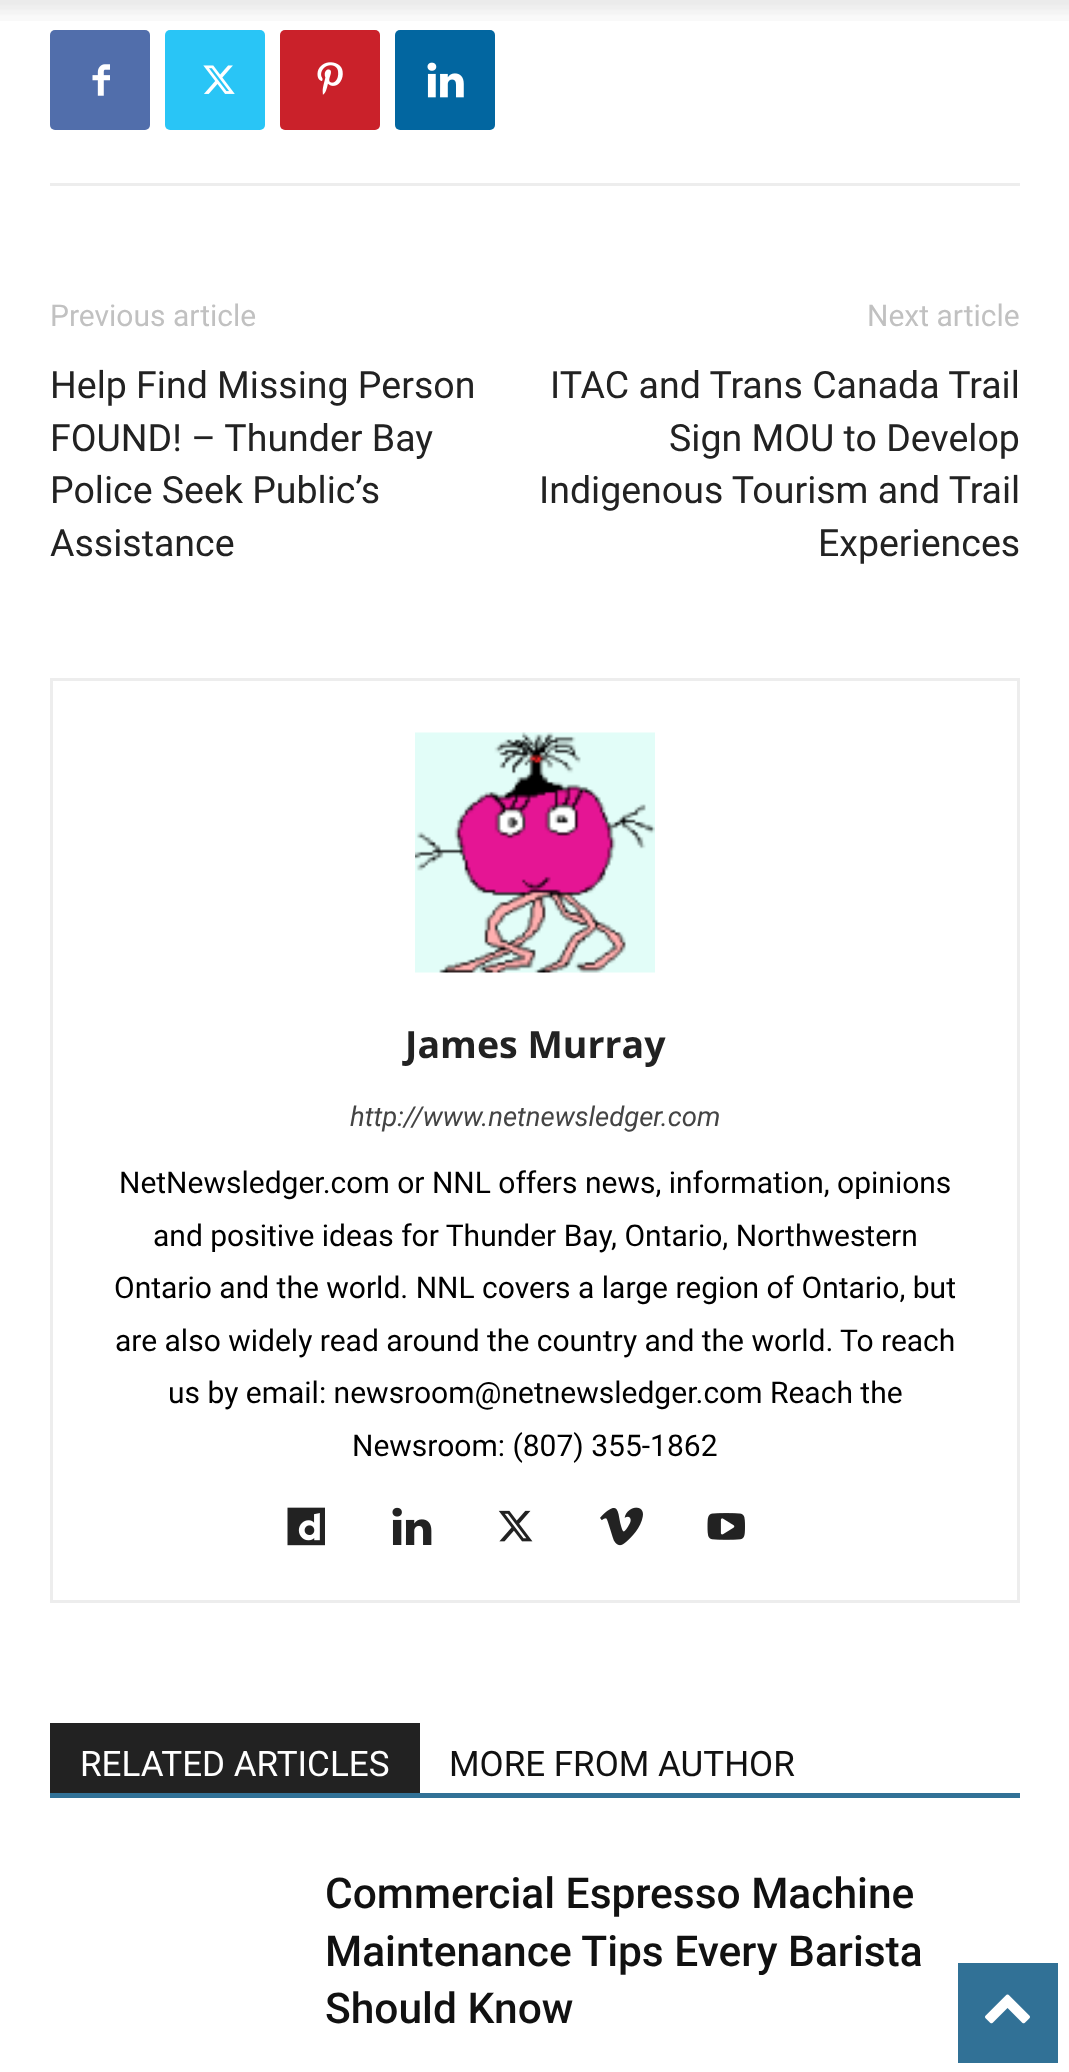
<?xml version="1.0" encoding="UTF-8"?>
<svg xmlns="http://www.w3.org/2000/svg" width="1069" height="2072">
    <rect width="100%" height="100%" fill="#FFFFFF"/>
    <image x="0" y="0" width="1069" height="21" href="img_01.png"/>
    <rect x="50" y="183" width="970" height="3" fill="#EDEDED"/>
    <rect x="50" y="30" width="100" height="100" rx="5" fill="#516EAB"/>
    <image x="92" y="64" width="18" height="32" href="img_02.png"/>
    <rect x="165" y="30" width="100" height="100" rx="5" fill="#29C5F6"/>
    <image x="203" y="65" width="32" height="29" href="img_03.png"/>
    <rect x="280" y="30" width="100" height="100" rx="5" fill="#CA212A"/>
    <image x="317" y="62" width="26" height="33" href="img_04.png"/>
    <rect x="395" y="30" width="100" height="100" rx="5" fill="#0266A0"/>
    <image x="427" y="62" width="37" height="36" href="img_05.png"/>
    <text x="50" y="326" font-family="Roboto" font-size="30" fill="#C1C1C1">Previous article</text>
    <text font-family="Roboto" font-size="37.5" fill="#222222">
        <tspan x="50" y="398">Help Find Missing Person</tspan>
        <tspan x="50" y="451">FOUND! – Thunder Bay</tspan>
        <tspan x="50" y="503">Police Seek Public’s</tspan>
        <tspan x="50" y="556">Assistance</tspan>
    </text>
    <text x="867" y="326" font-family="Roboto" font-size="30" fill="#C1C1C1">Next article</text>
    <text x="550" y="398" font-family="Roboto" font-size="37.5" fill="#222222">ITAC and Trans Canada Trail</text>
    <text x="669" y="451" font-family="Roboto" font-size="37.5" fill="#222222">Sign MOU to Develop</text>
    <text x="539" y="503" font-family="Roboto" font-size="37.5" fill="#222222">Indigenous Tourism and Trail</text>
    <text x="818" y="556" font-family="Roboto" font-size="37.5" fill="#222222">Experiences</text>
    <rect x="51.5" y="679.5" width="967" height="922" fill="none" stroke="#EDEDED" stroke-width="3"/>
    <image x="415" y="732" width="240" height="241" href="img_06.png"/>
    <text x="405" y="1058" font-family="Open Sans" font-size="37.5" font-weight="700" fill="#222222">James Murray</text>
    <text x="350" y="1126" font-family="Roboto" font-size="27.5" font-style="italic" fill="#444444">http://www.netnewsledger.com</text>
    <text x="119" y="1193" font-family="Roboto" font-size="30" fill="#000000">NetNewsledger.com or NNL offers news, information, opinions</text>
    <text x="153" y="1246" font-family="Roboto" font-size="30" fill="#000000">and positive ideas for Thunder Bay, Ontario, Northwestern</text>
    <text x="114" y="1298" font-family="Roboto" font-size="30" fill="#000000">Ontario and the world. NNL covers a large region of Ontario, but</text>
    <text x="115" y="1351" font-family="Roboto" font-size="30" fill="#000000">are also widely read around the country and the world.</text>
    <text x="840" y="1351" font-family="Roboto" font-size="30" fill="#000000">To reach</text>
    <text x="168" y="1403" font-family="Roboto" font-size="30" fill="#000000">us by email: newsroom@netnewsledger.com Reach the</text>
    <text x="352" y="1456" font-family="Roboto" font-size="30" fill="#000000">Newsroom: (807) 355-1862</text>
    <image x="287" y="1507" width="38" height="39" href="img_07.png"/>
    <image x="392" y="1507" width="40" height="38" href="img_08.png"/>
    <image x="498" y="1510" width="35" height="32" href="img_09.png"/>
    <image x="600" y="1507" width="43" height="39" href="img_10.png"/>
    <image x="707" y="1513" width="38" height="27" href="img_11.png"/>
    <rect x="50" y="1793" width="970" height="5" fill="#317196"/>
    <rect x="50" y="1723" width="370" height="70" fill="#222222"/>
    <text x="80" y="1776" font-family="Roboto" font-size="35" fill="#FFFFFF">RELATED ARTICLES</text>
    <text x="449" y="1776" font-family="Roboto" font-size="35" fill="#111111">MORE FROM AUTHOR</text>
    <text font-family="Roboto" font-size="42.5" font-weight="500" fill="#111111">
        <tspan x="325" y="1908">Commercial Espresso Machine</tspan>
        <tspan x="325" y="1966">Maintenance Tips Every Barista</tspan>
        <tspan x="325" y="2023">Should Know</tspan>
    </text>
    <rect x="958" y="1963" width="100" height="100" fill="#317196"/>
    <image x="985" y="1994" width="45" height="30" href="img_12.png"/>
</svg>
